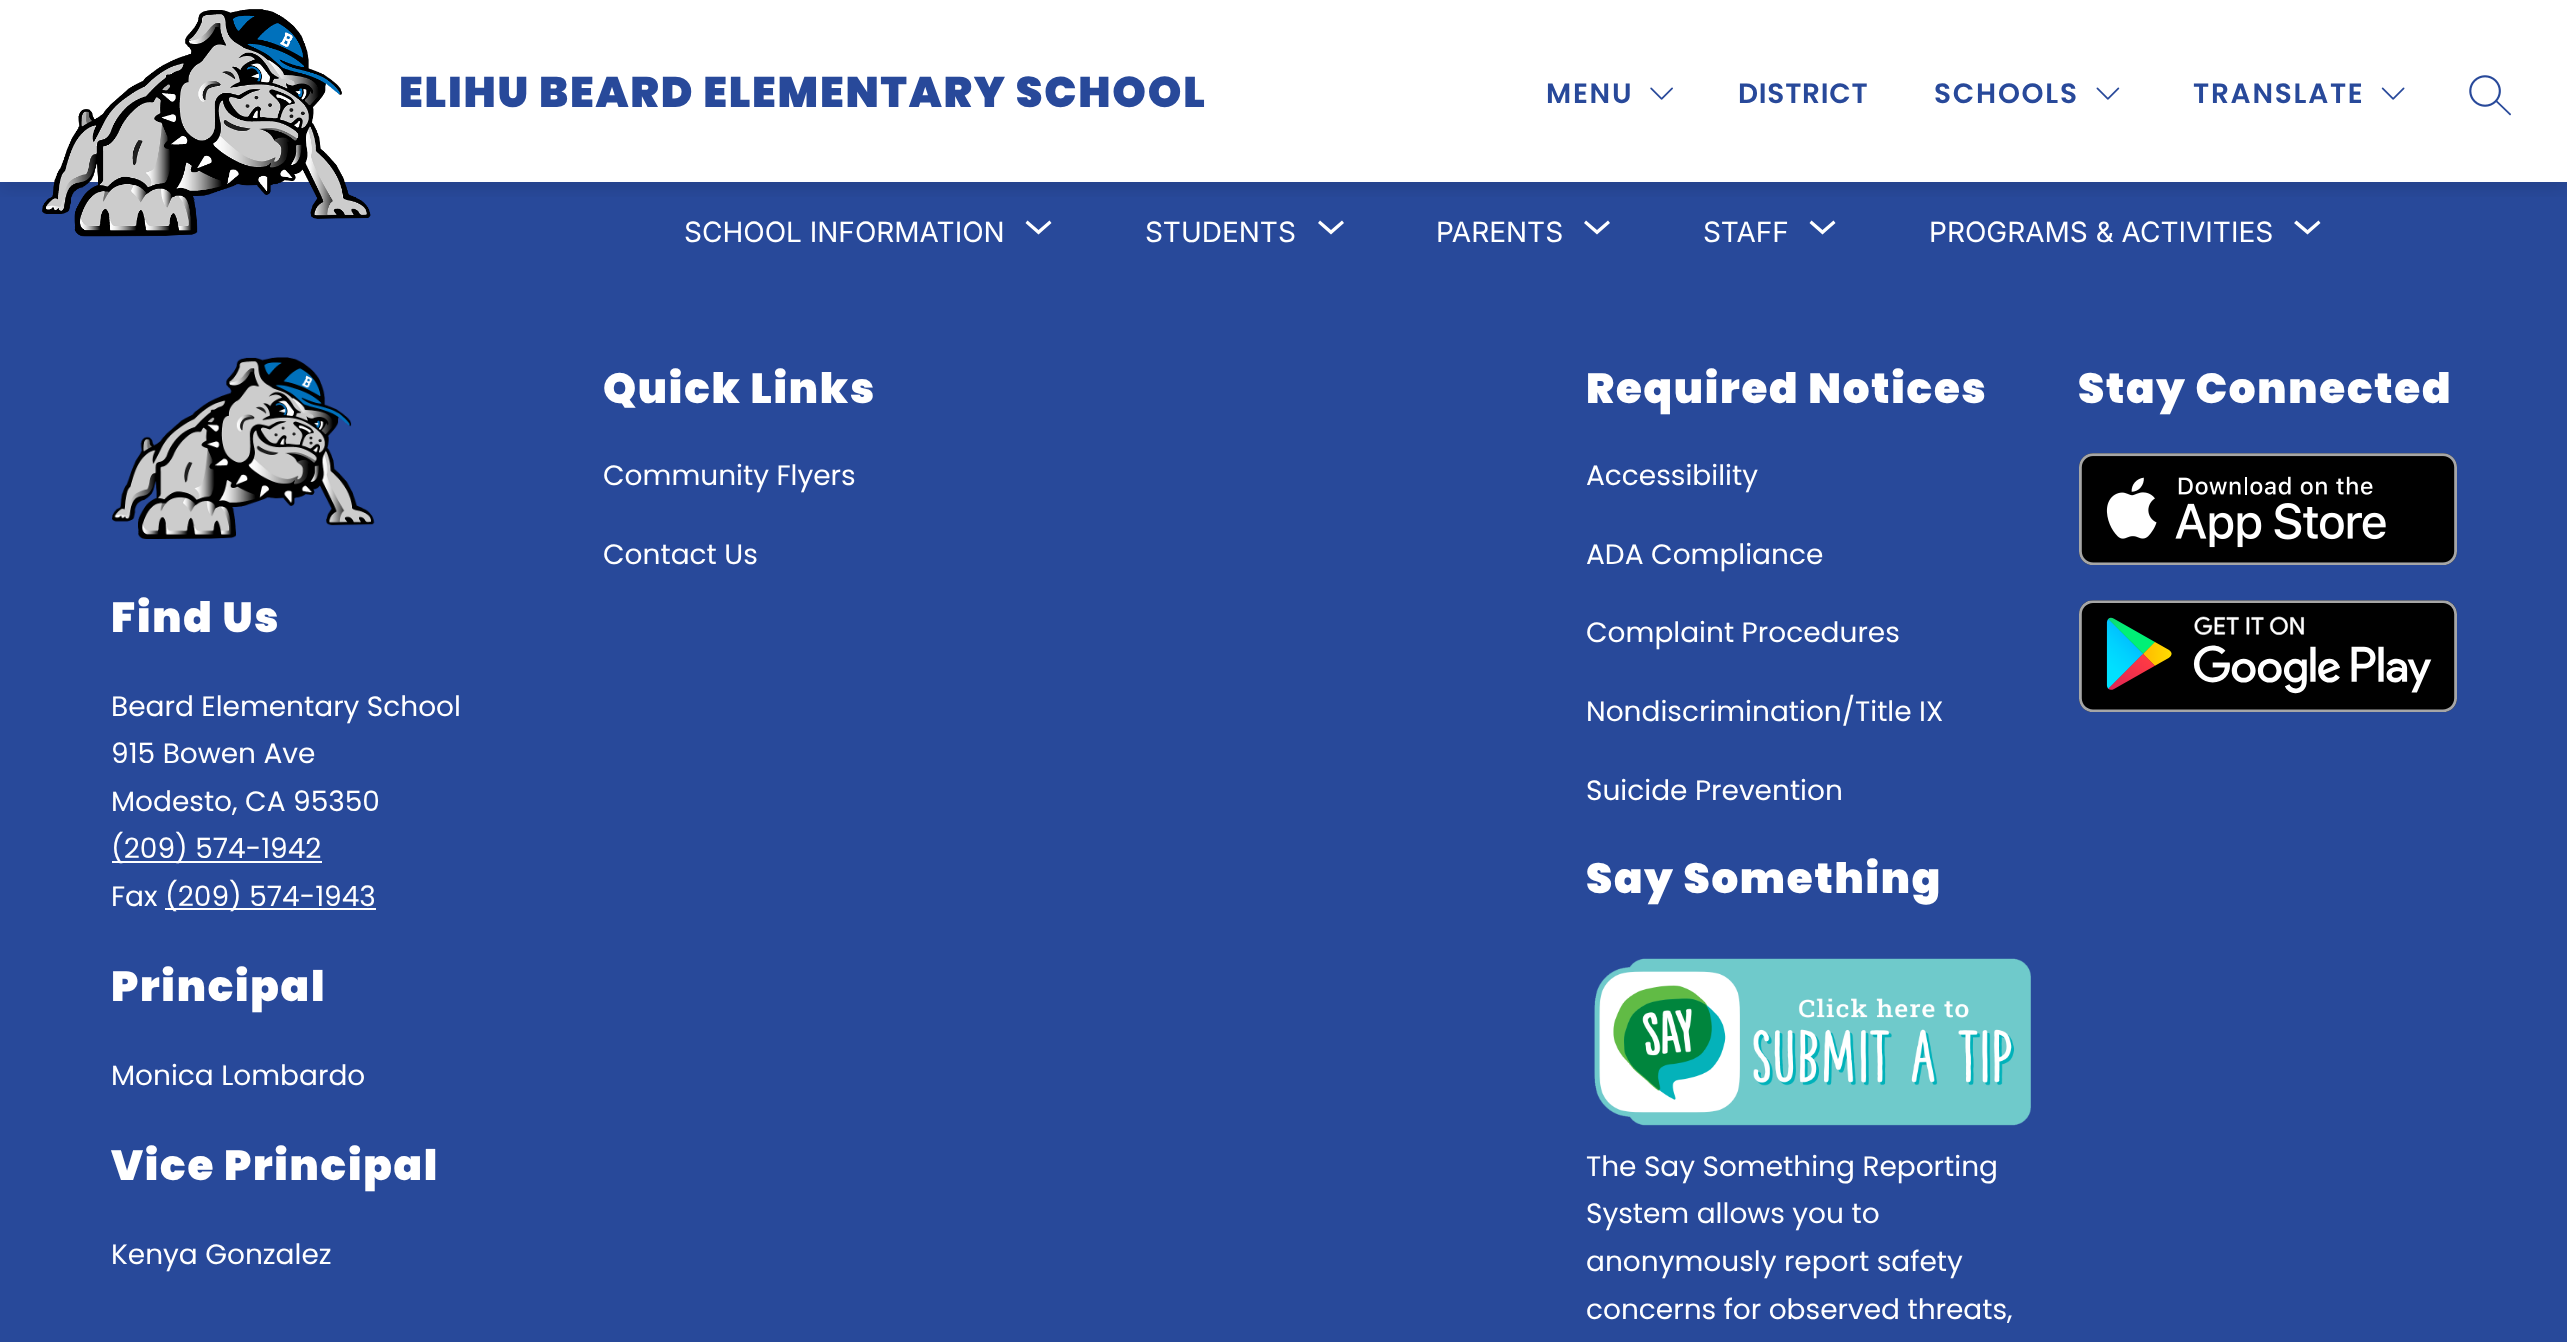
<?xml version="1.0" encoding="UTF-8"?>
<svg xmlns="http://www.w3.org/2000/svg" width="2567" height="1342">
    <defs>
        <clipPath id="clip1"><rect x="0" y="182" width="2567" height="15"/></clipPath>
        <filter id="blur1" x="-50%" y="-200%" width="200%" height="500%"><feGaussianBlur stdDeviation="9"/></filter>
    </defs>
    <rect width="100%" height="100%" fill="#FFFFFF"/>
    <rect x="0" y="182" width="2567" height="1160" fill="#28499A"/>
    <g clip-path="url(#clip1)">
        <rect x="0" y="7" width="2567" height="182" fill="#000000" fill-opacity="0.1" filter="url(#blur1)"/>
    </g>
    <image x="42" y="9" width="329" height="228" href="img_01.png"/>
    <text x="399" y="107" font-family="Poppins" font-size="42.75" font-weight="900" letter-spacing="1.75" fill="#28499A">ELIHU BEARD ELEMENTARY SCHOOL</text>
    <text x="1546" y="103" font-family="Poppins" font-size="28" font-weight="600" letter-spacing="1.75" fill="#28499A">MENU</text>
    <image x="1650" y="87" width="23" height="13" href="img_02.png"/>
    <text x="1738" y="103" font-family="Poppins" font-size="28" font-weight="600" letter-spacing="0.75" fill="#28499A">DISTRICT</text>
    <text x="1934" y="103" font-family="Poppins" font-size="28" font-weight="600" letter-spacing="1.75" fill="#28499A">SCHOOLS</text>
    <image x="2096" y="87" width="24" height="13" href="img_03.png"/>
    <text x="2193" y="103" font-family="Poppins" font-size="28" font-weight="600" letter-spacing="1.75" fill="#28499A">TRANSLATE</text>
    <image x="2381" y="87" width="24" height="13" href="img_04.png"/>
    <image x="2469" y="75" width="42" height="41" href="img_05.png"/>
    <text x="684" y="242" font-family="Inter" font-size="28" fill="#FFFFFF">SCHOOL INFORMATION</text>
    <path d="M 1049.5 220.5 L 1038.5 230 L 1027.5 220.5 L 1025.5 223 L 1038.5 234.5 L 1051.5 223 Z" fill="#FFFFFF" fill-rule="evenodd"/>
    <text x="1145" y="242" font-family="Inter" font-size="28" fill="#FFFFFF">STUDENTS</text>
    <path d="M 1342 220.5 L 1331 230 L 1320 220.5 L 1318 223 L 1331 234.5 L 1344 223 Z" fill="#FFFFFF" fill-rule="evenodd"/>
    <text x="1436" y="242" font-family="Inter" font-size="28" fill="#FFFFFF">PARENTS</text>
    <path d="M 1608 220.5 L 1597 230 L 1586 220.5 L 1584 223 L 1597 234.5 L 1610 223 Z" fill="#FFFFFF" fill-rule="evenodd"/>
    <text x="1703" y="242" font-family="Inter" font-size="28" fill="#FFFFFF">STAFF</text>
    <path d="M 1833.5 220.5 L 1822.5 230 L 1811.5 220.5 L 1809.5 223 L 1822.5 234.5 L 1835.5 223 Z" fill="#FFFFFF" fill-rule="evenodd"/>
    <text x="1929" y="242" font-family="Inter" font-size="28" fill="#FFFFFF">PROGRAMS &amp; ACTIVITIES</text>
    <path d="M 2318.5 220.5 L 2307.5 230 L 2296.5 220.5 L 2294 223 L 2307.5 234.5 L 2320.5 223 Z" fill="#FFFFFF" fill-rule="evenodd"/>
    <text x="603" y="403" font-family="Poppins" font-size="42" font-weight="900" letter-spacing="1.75" fill="#FFFFFF">Quick Links</text>
    <text x="603" y="485" font-family="Poppins" font-size="28" fill="#FFFFFF">Community Flyers</text>
    <text x="603" y="564" font-family="Poppins" font-size="28" fill="#FFFFFF">Contact Us</text>
    <text x="1586" y="403" font-family="Poppins" font-size="42" font-weight="900" letter-spacing="1.75" fill="#FFFFFF">Required Notices</text>
    <text x="1586" y="485" font-family="Poppins" font-size="28" fill="#FFFFFF">Accessibility</text>
    <text x="1586" y="564" font-family="Poppins" font-size="28" fill="#FFFFFF">ADA Compliance</text>
    <text x="1586" y="642" font-family="Poppins" font-size="28" fill="#FFFFFF">Complaint Procedures</text>
    <text x="1586" y="721" font-family="Poppins" font-size="28" fill="#FFFFFF">Nondiscrimination/Title IX</text>
    <text x="1586" y="800" font-family="Poppins" font-size="28" fill="#FFFFFF">Suicide Prevention</text>
    <text x="1586" y="893" font-family="Poppins" font-size="42" font-weight="900" letter-spacing="1.75" fill="#FFFFFF">Say Something</text>
    <image x="1594" y="958" width="437" height="168" href="img_06.png"/>
    <text font-family="Poppins" font-size="28" fill="#FFFFFF">
        <tspan x="1586" y="1176">The Say Something Reporting</tspan>
        <tspan x="1586" y="1223">System allows you to</tspan>
        <tspan x="1586" y="1271">anonymously report safety</tspan>
        <tspan x="1586" y="1319">concerns for observed threats,</tspan>
    </text>
    <text x="2078" y="403" font-family="Poppins" font-size="42" font-weight="900" letter-spacing="1.75" fill="#FFFFFF">Stay Connected</text>
    <image x="2079" y="453" width="378" height="112" href="img_07.png"/>
    <image x="2079" y="600" width="378" height="112" href="img_08.png"/>
    <image x="112" y="357" width="263" height="182" href="img_09.png"/>
    <text x="111" y="632" font-family="Poppins" font-size="42" font-weight="900" letter-spacing="1.75" fill="#FFFFFF">Find Us</text>
    <text font-family="Poppins" font-size="28" fill="#FFFFFF">
        <tspan x="111" y="716">Beard Elementary School</tspan>
        <tspan x="111" y="763">915 Bowen Ave</tspan>
        <tspan x="111" y="811">Modesto, CA 95350</tspan>
    </text>
    <rect x="112" y="861" width="210" height="2" fill="#FFFFFF"/>
    <text font-family="Poppins" font-size="28" fill="#FFFFFF">
        <tspan x="111" y="858">(209) 574-1942</tspan>
        <tspan x="111" y="906">Fax</tspan>
    </text>
    <rect x="165" y="908" width="211" height="2" fill="#FFFFFF"/>
    <text x="165" y="906" font-family="Poppins" font-size="28" fill="#FFFFFF">(209) 574-1943</text>
    <text x="111" y="1001" font-family="Poppins" font-size="42" font-weight="900" letter-spacing="1.75" fill="#FFFFFF">Principal</text>
    <text x="111" y="1085" font-family="Poppins" font-size="28" fill="#FFFFFF">Monica Lombardo</text>
    <text x="111" y="1180" font-family="Poppins" font-size="42" font-weight="900" letter-spacing="1.75" fill="#FFFFFF">Vice Principal</text>
    <text x="111" y="1264" font-family="Poppins" font-size="28" fill="#FFFFFF">Kenya Gonzalez</text>
</svg>
